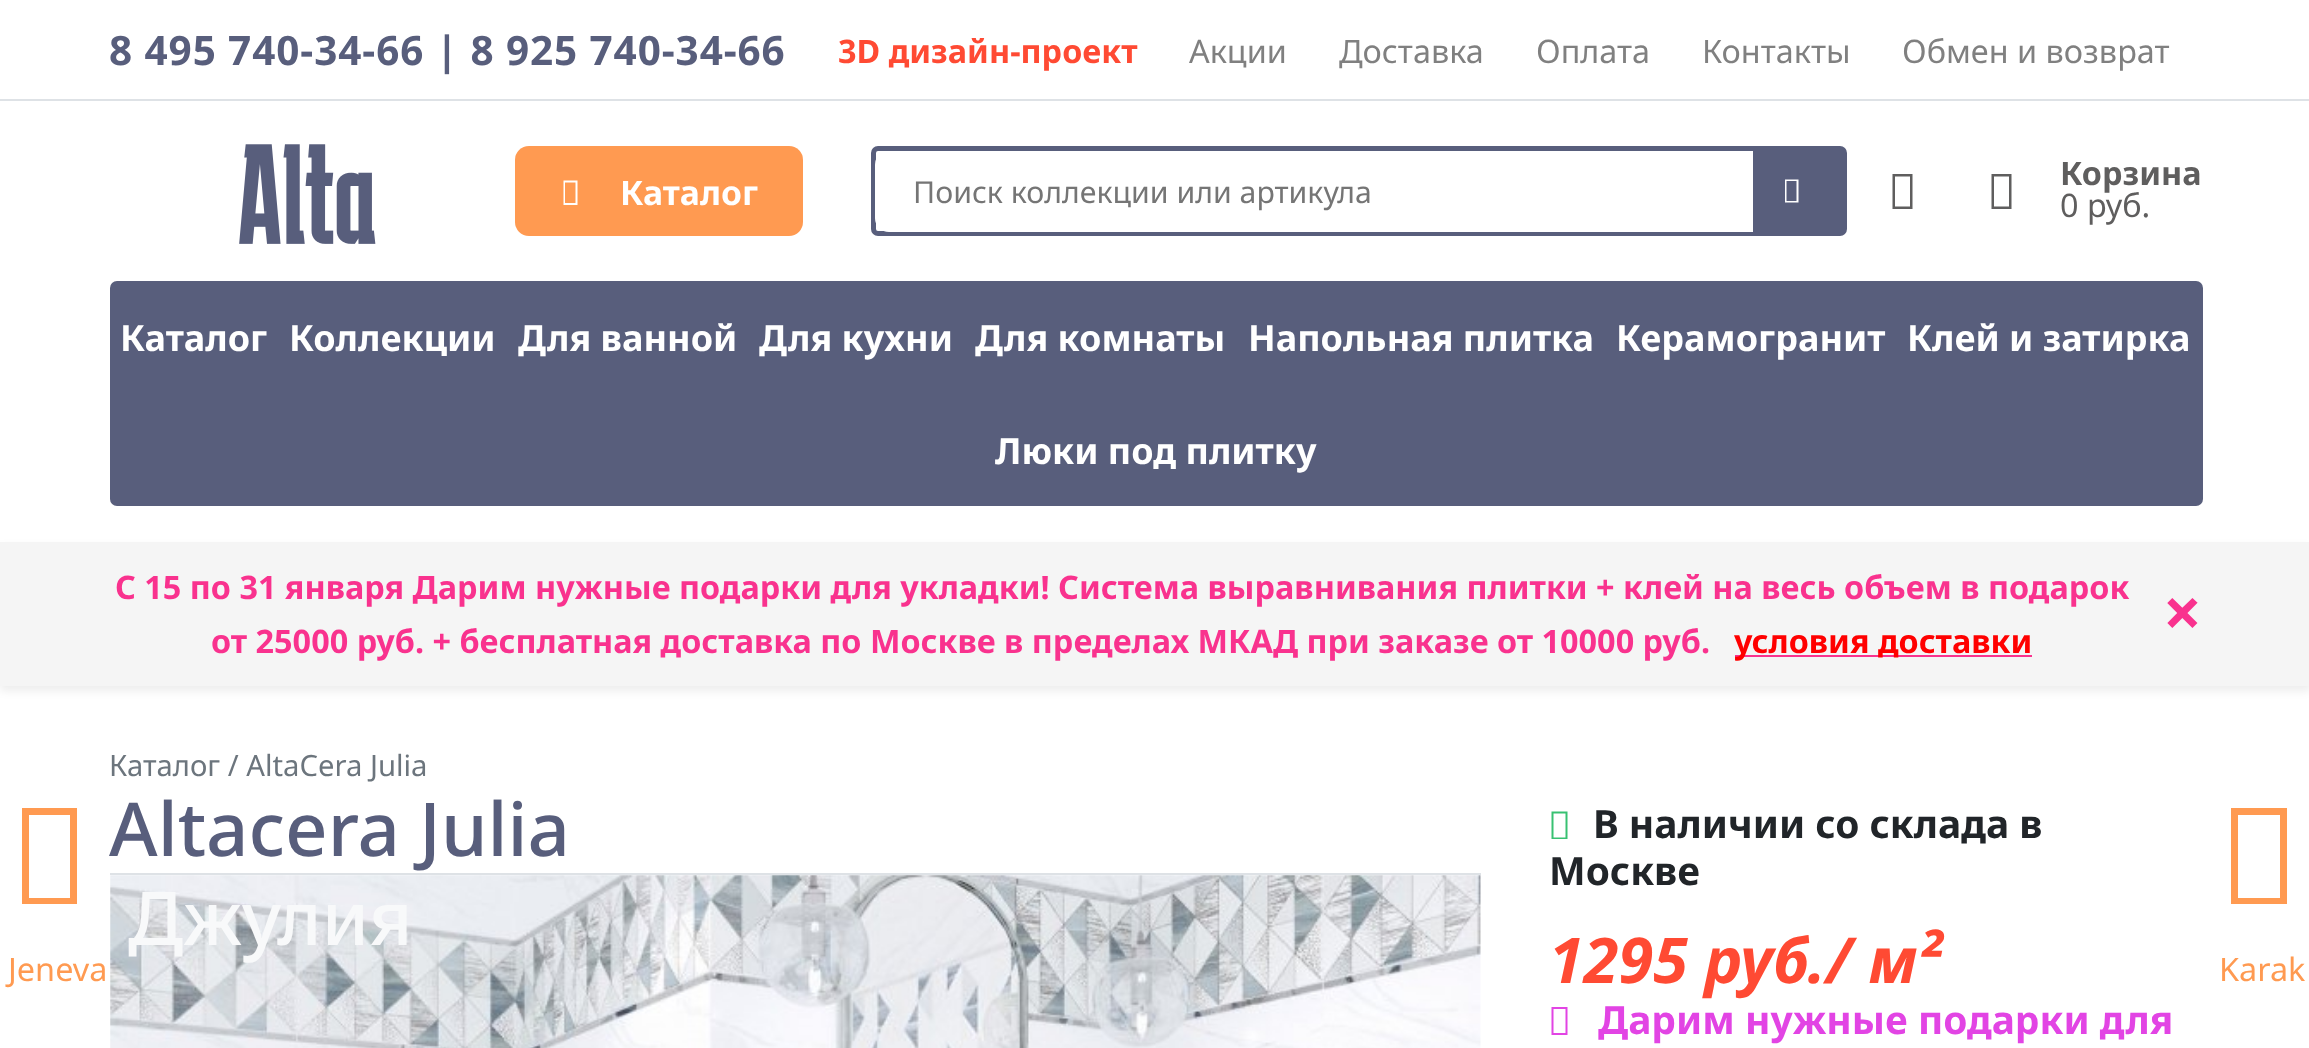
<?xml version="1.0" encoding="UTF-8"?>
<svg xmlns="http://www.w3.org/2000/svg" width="2309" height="1048">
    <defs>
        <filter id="blur1" x="-50%" y="-200%" width="200%" height="500%"><feGaussianBlur stdDeviation="4.5"/></filter>
    </defs>
    <rect width="100%" height="100%" fill="#FFFFFF"/>
    <rect x="0" y="99" width="2309" height="2" fill="#DEE2E6"/>
    <text x="109" y="65" font-family="Noto Sans" font-size="40.5" font-weight="700" letter-spacing="0.9" fill="#585E7C">8 495 740-34-66 | 8 925 740-34-66</text>
    <text x="838" y="63" font-family="Noto Sans" font-size="32.4" font-weight="700" fill="#FF4A33">3D дизайн-проект</text>
    <text x="1189" y="63" font-family="Noto Sans" font-size="32.4" fill="#808080">Акции</text>
    <text x="1339" y="63" font-family="Noto Sans" font-size="32.4" fill="#808080">Доставка</text>
    <text x="1536" y="63" font-family="Noto Sans" font-size="32.4" fill="#808080">Оплата</text>
    <text x="1702" y="63" font-family="Noto Sans" font-size="32.4" fill="#808080">Контакты</text>
    <text x="1902" y="63" font-family="Noto Sans" font-size="32.4" fill="#808080">Обмен и возврат</text>
    <image x="239" y="144" width="137" height="100" href="img_01.png"/>
    <rect x="515" y="146" width="288" height="90" rx="14" fill="#FF9A51"/>
    <path d="M 563.5 205 V 180.5 H 577.5 V 205 Z M 565 203 H 575.5 V 182.5 H 565 Z" fill="#FFFFFF"/>
    <text x="620" y="205" font-family="Noto Sans" font-size="33.75" font-weight="700" fill="#FFFFFF">Каталог</text>
    <rect x="873.5" y="148.5" width="971" height="85" rx="4.5" fill="none" stroke="#585E7C" stroke-width="5"/>
    <rect x="875" y="151" width="968" height="81" rx="14" fill="#FFFFFF"/>
    <text x="913" y="203" font-family="Noto Sans" font-size="30.25" fill="#757575">Поиск коллекции или артикула</text>
    <rect x="1753" y="151" width="90" height="81" fill="#585E7C"/>
    <path d="M 1785 202.5 V 179.5 H 1798.5 V 202.5 Z M 1786.5 201 H 1796.5 V 181 H 1786.5 Z" fill="#FFFFFF"/>
    <path d="M 1892.5 209 V 174 H 1912.5 V 209 Z M 1895 206.5 H 1910 V 176.5 H 1895 Z" fill="#5F5E5E"/>
    <path d="M 1991.5 209 V 174 H 2011.5 V 209 Z M 1994 206.5 H 2009 V 176.5 H 1994 Z" fill="#5F5E5E"/>
    <text x="2060" y="185" font-family="Noto Sans" font-size="32.4" font-weight="700" fill="#5F5E5E">Корзина</text>
    <text x="2060" y="217" font-family="Noto Sans" font-size="32.4" fill="#5F5E5E">0 руб.</text>
    <rect x="110" y="281" width="2093" height="225" rx="7" fill="#585E7C"/>
    <text x="120" y="351" font-family="Noto Sans" font-size="36" font-weight="700" fill="#FFFFFF">Каталог</text>
    <text x="289" y="351" font-family="Noto Sans" font-size="36" font-weight="700" fill="#FFFFFF">Коллекции</text>
    <text x="518" y="351" font-family="Noto Sans" font-size="36" font-weight="700" fill="#FFFFFF">Для ванной</text>
    <text x="759" y="351" font-family="Noto Sans" font-size="36" font-weight="700" fill="#FFFFFF">Для кухни</text>
    <text x="975" y="351" font-family="Noto Sans" font-size="36" font-weight="700" fill="#FFFFFF">Для комнаты</text>
    <text x="1248" y="351" font-family="Noto Sans" font-size="36" font-weight="700" fill="#FFFFFF">Напольная плитка</text>
    <text x="1616" y="351" font-family="Noto Sans" font-size="36" font-weight="700" fill="#FFFFFF">Керамогранит</text>
    <text x="1907" y="351" font-family="Noto Sans" font-size="36" font-weight="700" fill="#FFFFFF">Клей и затирка</text>
    <text x="995" y="464" font-family="Noto Sans" font-size="36" font-weight="700" fill="#FFFFFF">Люки под плитку</text>
    <rect x="0" y="547" width="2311" height="144" fill="#000000" fill-opacity="0.07" filter="url(#blur1)"/>
    <rect x="0" y="542" width="2309" height="144" fill="#F5F5F5"/>
    <text x="115" y="599" font-family="Noto Sans" font-size="32.4" font-weight="700" fill="#F9328E">С 15 по 31 января Дарим нужные подарки для укладки! Система выравнивания плитки + клей на весь объем в подарок</text>
    <text x="2163" y="637" font-family="Noto Sans" font-size="68" font-weight="700" fill="#F9328E">×</text>
    <text x="211" y="653" font-family="Noto Sans" font-size="32.4" font-weight="700" fill="#F9328E">от 25000 руб. + бесплатная доставка по Москве в пределах МКАД при заказе от 10000 руб.</text>
    <rect x="1735" y="655" width="297" height="2" fill="#F9328E"/>
    <text x="1734" y="653" font-family="Noto Sans" font-size="32.4" font-weight="700" fill="#FF0000">условия доставки</text>
    <text x="109" y="776" font-family="Noto Sans" font-size="29.25" fill="#6C757D">Каталог / AltaCera Julia</text>
    <rect x="110" y="873" width="1371" height="2" fill="#DEE2E6"/>
    <text x="109" y="856" font-family="Noto Sans" font-size="74.25" font-weight="500" fill="#585E7C">Altacera Julia</text>
    <image x="110" y="875" width="1371" height="173" href="img_02.png"/>
    <text x="128" y="945" font-family="Noto Sans" font-size="74.25" font-weight="500" fill="#F8F9FA">Джулия</text>
    <path d="M 1551.5 839 V 811.5 H 1567.5 V 839 Z M 1553.5 837.5 H 1565.5 V 813.5 H 1553.5 Z" fill="#38C172"/>
    <text x="1593" y="838" font-family="Noto Sans" font-size="38.9" font-weight="700" fill="#212529">В наличии со склада в</text>
    <text x="1549" y="885" font-family="Noto Sans" font-size="38.9" font-weight="700" fill="#212529">Москве</text>
    <text x="1549" y="983" font-family="Noto Sans" font-size="63" font-weight="700" font-style="italic" fill="#FF4A33">1295 руб./ м²</text>
    <path d="M 1551.5 1035 V 1007 H 1567.5 V 1035 Z M 1553.5 1033 H 1565.5 V 1009 H 1553.5 Z" fill="#E244E4"/>
    <text x="1598" y="1034" font-family="Noto Sans" font-size="38.9" font-weight="700" fill="#E244E4">Дарим нужные подарки для</text>
    <path d="M 22 904 V 808 H 77 V 904 Z M 29 898 H 70 V 815 H 29 Z" fill="#FF9A51"/>
    <text x="8" y="981" font-family="Noto Sans" font-size="32.4" fill="#FF9A51">Jeneva</text>
    <path d="M 2231 904 V 808 H 2287 V 904 Z M 2238 898 H 2280 V 815 H 2238 Z" fill="#FF9A51"/>
    <text x="2219" y="981" font-family="Noto Sans" font-size="32.4" fill="#FF9A51">Karak</text>
</svg>
